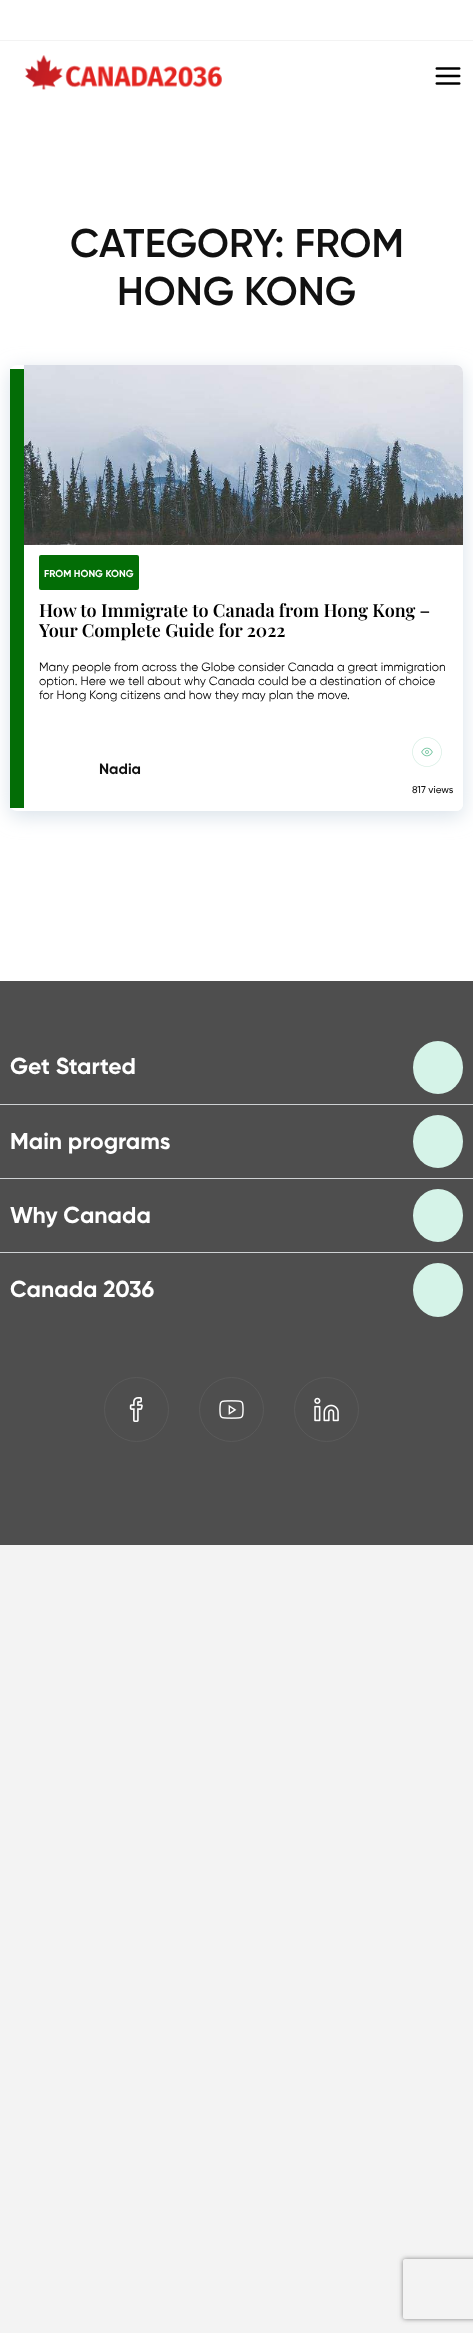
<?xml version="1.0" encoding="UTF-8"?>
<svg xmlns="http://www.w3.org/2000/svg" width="473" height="2333">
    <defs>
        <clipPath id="clip1"><path d="M 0 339 H 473 V 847 H 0 Z M 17 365 H 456 C 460 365 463 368 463 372 V 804 C 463 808 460 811 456 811 H 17 C 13 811 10 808 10 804 V 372 C 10 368 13 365 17 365 Z" clip-rule="evenodd"/></clipPath>
        <filter id="blur1" x="-50%" y="-200%" width="200%" height="500%"><feGaussianBlur stdDeviation="10"/></filter>
        <clipPath id="clip2"><path d="M 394 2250 H 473 V 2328 H 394 Z M 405 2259 H 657 C 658 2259 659 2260 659 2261 V 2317 C 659 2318 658 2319 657 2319 H 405 C 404 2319 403 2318 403 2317 V 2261 C 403 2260 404 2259 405 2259 Z" clip-rule="evenodd"/></clipPath>
        <filter id="blur2" x="-50%" y="-200%" width="200%" height="500%"><feGaussianBlur stdDeviation="2.5"/></filter>
    </defs>
    <rect width="100%" height="100%" fill="#F3F3F3"/>
    <rect x="0" y="0" width="473" height="40" fill="#FFFFFF"/>
    <rect x="0" y="41" width="473" height="940" fill="#FFFFFF"/>
    <image x="25" y="55" width="197" height="35" href="img_01.png"/>
    <image x="435" y="67" width="26" height="18" href="img_02.png"/>
    <text x="70" y="257" font-family="Gilroy" font-size="40" font-weight="600" fill="#111111">CATEGORY: FROM</text>
    <text x="117" y="305" font-family="Gilroy" font-size="40" font-weight="600" fill="#111111">HONG KONG</text>
    <g clip-path="url(#clip1)">
        <rect x="10" y="370" width="453" height="446" rx="7" fill="#D8E1E9" filter="url(#blur1)"/>
    </g>
    <path d="M 24 365 H 456 C 460 365 463 368 463 372 V 804 C 463 808 460 811 456 811 H 24 Z" fill="#FFFFFF"/>
    <rect x="10" y="369" width="14" height="439" fill="#036D06"/>
    <image x="24" y="365" width="439" height="180" href="img_03.png"/>
    <rect x="39" y="555" width="100" height="35" rx="2" fill="#036D06"/>
    <text x="44" y="577" font-family="Gilroy" font-size="10" font-weight="700" fill="#FFFFFF">FROM HONG KONG</text>
    <text font-family="Playfair Display" font-size="18" font-weight="600" fill="#000000">
        <tspan x="39" y="617">How to Immigrate to Canada from Hong Kong –</tspan>
        <tspan x="39" y="637">Your Complete Guide for 2022</tspan>
    </text>
    <text font-family="Gilroy" font-size="12" fill="#000000">
        <tspan x="39" y="671">Many people from across the Globe consider Canada a great immigration</tspan>
        <tspan x="39" y="685">option. Here we tell about why Canada could be a destination of choice</tspan>
        <tspan x="39" y="699">for Hong Kong citizens and how they may plan the move.</tspan>
    </text>
    <text x="99" y="774" font-family="Gilroy" font-size="15" font-weight="700" fill="#111111">Nadia</text>
    <image x="412" y="737" width="30" height="30" href="img_04.png"/>
    <text x="412" y="793" font-family="Gilroy" font-size="10" font-weight="500" fill="#111111">817 views</text>
    <rect x="0" y="981" width="473" height="564" fill="#4E4E4E"/>
    <rect x="0" y="1104" width="473" height="1" fill="#CFD2D4"/>
    <text x="10" y="1074" font-family="Gilroy" font-size="23" font-weight="700" fill="#FFFFFF">Get Started</text>
    <ellipse cx="438" cy="1067.5" rx="25" ry="26.5" fill="#D5F3E8"/>
    <rect x="0" y="1178" width="473" height="1" fill="#CFD2D4"/>
    <text x="10" y="1149" font-family="Gilroy" font-size="23" font-weight="700" fill="#FFFFFF">Main programs</text>
    <ellipse cx="438" cy="1141.5" rx="25" ry="26.5" fill="#D5F3E8"/>
    <rect x="0" y="1252" width="473" height="1" fill="#CFD2D4"/>
    <text x="10" y="1223" font-family="Gilroy" font-size="23" font-weight="700" fill="#FFFFFF">Why Canada</text>
    <ellipse cx="438" cy="1215.5" rx="25" ry="26.5" fill="#D5F3E8"/>
    <text x="10" y="1297" font-family="Gilroy" font-size="23" font-weight="700" fill="#FFFFFF">Canada 2036</text>
    <ellipse cx="438" cy="1290" rx="25" ry="27" fill="#D5F3E8"/>
    <circle cx="136.5" cy="1409.5" r="32" fill="none" stroke="#5A5A5A"/>
    <image x="129" y="1397" width="14" height="25" href="img_05.png"/>
    <circle cx="231.5" cy="1409.5" r="32" fill="none" stroke="#5A5A5A"/>
    <image x="219" y="1400" width="25" height="19" href="img_06.png"/>
    <circle cx="326.5" cy="1409.5" r="32" fill="none" stroke="#5A5A5A"/>
    <image x="314" y="1397" width="25" height="25" href="img_07.png"/>
    <g clip-path="url(#clip2)">
        <rect x="403" y="2259" width="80" height="60" rx="2" fill="#808080" filter="url(#blur2)"/>
    </g>
</svg>
